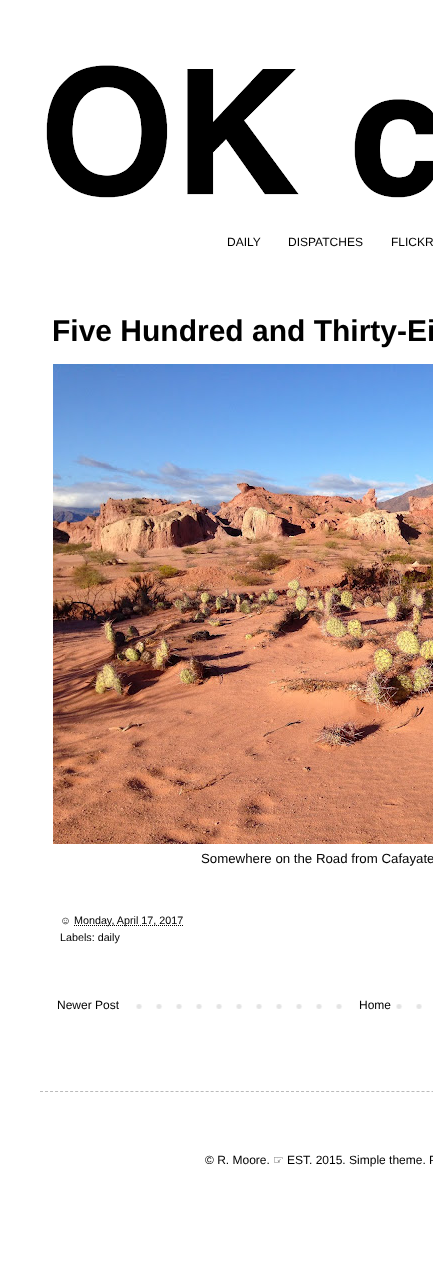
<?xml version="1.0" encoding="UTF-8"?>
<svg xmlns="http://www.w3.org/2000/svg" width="433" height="1275">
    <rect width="100%" height="100%" fill="#FFFFFF"/>
    <image x="46" y="65" width="387" height="133" href="img_01.png"/>
    <text x="227" y="246" font-family="Liberation Sans" font-size="12" fill="#000000">DAILY</text>
    <text x="288" y="246" font-family="Liberation Sans" font-size="12" fill="#000000">DISPATCHES</text>
    <text x="391" y="246" font-family="Liberation Sans" font-size="12" fill="#000000">FLICKR</text>
    <text x="52" y="341" font-family="Liberation Sans" font-size="30" font-weight="700" fill="#000000">Five Hundred and Thirty-Ei</text>
    <image x="53" y="364" width="380" height="480" href="img_02.png"/>
    <text x="201" y="863" font-family="Liberation Sans" font-size="13.25" fill="#000000">Somewhere on the Road from Cafayate</text>
    <text x="60" y="924" font-family="Liberation Sans" font-size="10.75" fill="#000000">☺︎</text>
    <path d="M 74 925.5 H 183.5" fill="none" stroke="#000000" stroke-dasharray="1 1"/>
    <text x="74" y="924" font-family="Liberation Sans" font-size="10.75" fill="#000000">Monday, April 17, 2017</text>
    <text x="60" y="941" font-family="Liberation Sans" font-size="10.75" fill="#000000">Labels: daily</text>
    <image x="136" y="1004" width="286" height="5" href="img_03.png"/>
    <text x="57" y="1009" font-family="Liberation Sans" font-size="12" fill="#000000">Newer Post</text>
    <rect x="356" y="1004" width="26" height="5" fill="#FFFFFF"/>
    <text x="359" y="1009" font-family="Liberation Sans" font-size="12" fill="#000000">Home</text>
    <path d="M 40 1091.5 H 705" fill="none" stroke="#BBBBBB" stroke-dasharray="3 2.02"/>
    <text x="205" y="1164" font-family="Liberation Sans" font-size="12" fill="#000000">© R. Moore.</text>
    <text x="273" y="1164" font-family="DejaVu Sans" font-size="12" fill="#000000">☞</text>
    <text x="287" y="1164" font-family="Liberation Sans" font-size="12" fill="#000000">EST. 2015. Simple theme. P</text>
</svg>
